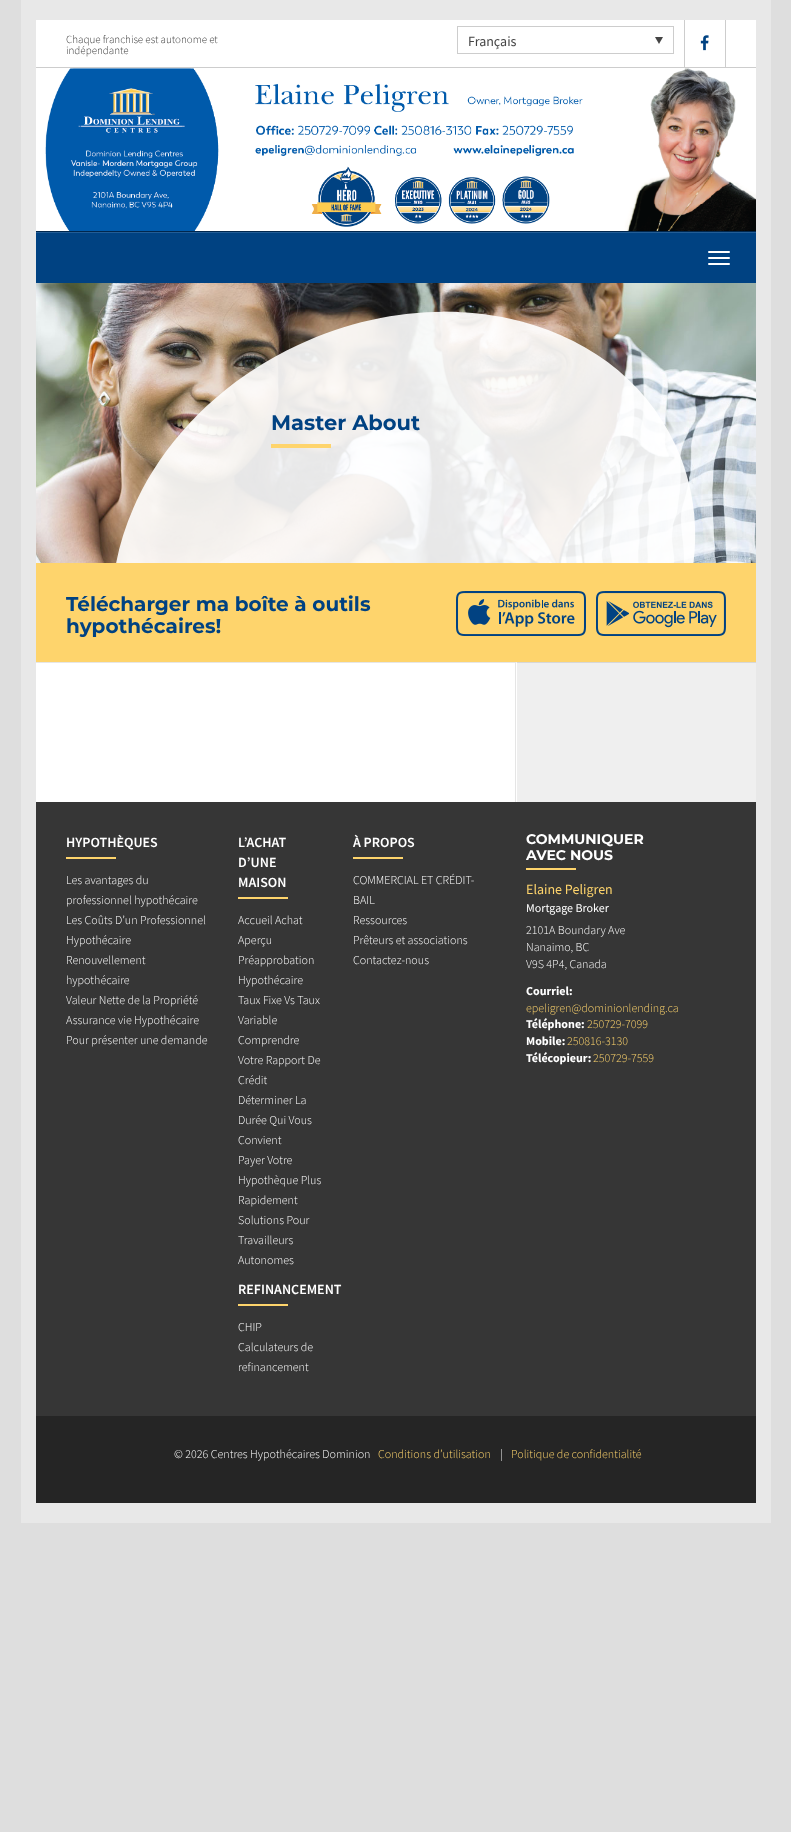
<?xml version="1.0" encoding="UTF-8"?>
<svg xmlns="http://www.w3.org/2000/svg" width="791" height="1832">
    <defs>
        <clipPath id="clip1"><rect x="36" y="283" width="720" height="280"/></clipPath>
    </defs>
    <rect width="100%" height="100%" fill="#DEDEDE"/>
    <rect x="21" y="0" width="750" height="1523" fill="#E8E8E8"/>
    <rect x="36" y="20" width="720" height="47" fill="#FFFFFF"/>
    <rect x="36" y="67" width="720" height="1" fill="#CDCDCD"/>
    <text font-family="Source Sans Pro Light" font-size="11" font-weight="300" fill="#363636">
        <tspan x="66" y="43">Chaque franchise est autonome et</tspan>
        <tspan x="66" y="54">indépendante</tspan>
    </text>
    <rect x="457.5" y="26.5" width="216" height="27" fill="none" stroke="#CDCDCD"/>
    <text x="468" y="46" font-family="Source Sans Pro" font-size="14" fill="#444444">Français</text>
    <path d="M 655 37 H 663 L 659 44 Z" fill="#444444"/>
    <rect x="725" y="20" width="1" height="47" fill="#CDCDCD"/>
    <rect x="684" y="20" width="1" height="47" fill="#CDCDCD"/>
    <image x="700" y="35" width="9" height="16" href="img_01.png"/>
    <rect x="36" y="68" width="9" height="163" fill="#FFFFFF"/>
    <image x="45" y="68" width="711" height="163" href="img_02.png"/>
    <rect x="36" y="231" width="720" height="1" fill="#00274E"/>
    <rect x="36" y="233" width="720" height="50" fill="#004282"/>
    <rect x="36" y="232" width="720" height="1" fill="#225D96"/>
    <rect x="708" y="251" width="22" height="2" rx="1" fill="#FFFFFF"/>
    <rect x="708" y="257" width="22" height="2" rx="1" fill="#FFFFFF"/>
    <rect x="708" y="263" width="22" height="2" rx="1" fill="#FFFFFF"/>
    <image x="36" y="283" width="720" height="280" href="img_03.png"/>
    <g clip-path="url(#clip1)">
        <path d="M 298 345 C 448 275 617 319 675 444 C 734 569 659 728 509 798 C 359 868 190 823 132 698 C 73 573 148 415 298 345 Z" fill="#FFFFFF" fill-opacity="0.9"/>
    </g>
    <text x="271" y="430" font-family="Montserrat" font-size="21" font-weight="700" fill="#004282">Master About</text>
    <rect x="271" y="444" width="60" height="4" fill="#FED46C"/>
    <rect x="36" y="563" width="720" height="99" fill="#FED46C"/>
    <text font-family="Montserrat" font-size="20" font-weight="700" fill="#004282">
        <tspan x="66" y="611">Télécharger ma boîte à outils</tspan>
        <tspan x="66" y="633">hypothécaires!</tspan>
    </text>
    <image x="456" y="591" width="130" height="45" href="img_04.png"/>
    <image x="596" y="591" width="130" height="45" href="img_05.png"/>
    <rect x="36" y="662" width="480" height="140" fill="#FFFFFF"/>
    <path d="M 36 662 H 516 L 515 663 H 36 Z" fill="#E6E6E6"/>
    <path d="M 516 662 V 802 H 515 V 663 Z" fill="#000000" fill-opacity="0.1"/>
    <rect x="516" y="662" width="240" height="140" fill="#EFEFEF"/>
    <path d="M 516 662 H 756 V 663 H 517 Z" fill="#D7D7D7"/>
    <path d="M 516 802 V 662 L 517 663 V 802 Z" fill="#FFFFFF"/>
    <rect x="36" y="1416" width="720" height="87" fill="#252525"/>
    <rect x="36" y="802" width="720" height="614" fill="#363636"/>
    <text x="66" y="847" font-family="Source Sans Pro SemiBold" font-size="14" font-weight="600" fill="#FFFFFF">HYPOTHÈQUES</text>
    <rect x="66" y="857" width="50" height="2" fill="#FED46C"/>
    <text font-family="Source Sans Pro Light" font-size="12" font-weight="300" fill="#FFFFFF">
        <tspan x="66" y="884">Les avantages du</tspan>
        <tspan x="66" y="904">professionnel hypothécaire</tspan>
        <tspan x="66" y="924">Les Coûts D’un Professionnel</tspan>
        <tspan x="66" y="944">Hypothécaire</tspan>
        <tspan x="66" y="964">Renouvellement</tspan>
        <tspan x="66" y="984">hypothécaire</tspan>
        <tspan x="66" y="1004">Valeur Nette de la Propriété</tspan>
        <tspan x="66" y="1024">Assurance vie Hypothécaire</tspan>
        <tspan x="66" y="1044">Pour présenter une demande</tspan>
    </text>
    <text font-family="Source Sans Pro SemiBold" font-size="14" font-weight="600" fill="#FFFFFF">
        <tspan x="238" y="847">L’ACHAT</tspan>
        <tspan x="238" y="867">D’UNE</tspan>
        <tspan x="238" y="887">MAISON</tspan>
    </text>
    <rect x="238" y="897" width="50" height="2" fill="#FED46C"/>
    <text font-family="Source Sans Pro Light" font-size="12" font-weight="300" fill="#FFFFFF">
        <tspan x="238" y="924">Accueil Achat</tspan>
        <tspan x="238" y="944">Aperçu</tspan>
        <tspan x="238" y="964">Préapprobation</tspan>
        <tspan x="238" y="984">Hypothécaire</tspan>
        <tspan x="238" y="1004">Taux Fixe Vs Taux</tspan>
        <tspan x="238" y="1024">Variable</tspan>
        <tspan x="238" y="1044">Comprendre</tspan>
        <tspan x="238" y="1064">Votre Rapport De</tspan>
        <tspan x="238" y="1084">Crédit</tspan>
        <tspan x="238" y="1104">Déterminer La</tspan>
        <tspan x="238" y="1124">Durée Qui Vous</tspan>
        <tspan x="238" y="1144">Convient</tspan>
        <tspan x="238" y="1164">Payer Votre</tspan>
        <tspan x="238" y="1184">Hypothèque Plus</tspan>
        <tspan x="238" y="1204">Rapidement</tspan>
        <tspan x="238" y="1224">Solutions Pour</tspan>
        <tspan x="238" y="1244">Travailleurs</tspan>
        <tspan x="238" y="1264">Autonomes</tspan>
    </text>
    <text x="238" y="1294" font-family="Source Sans Pro SemiBold" font-size="14" font-weight="600" fill="#FFFFFF">REFINANCEMENT</text>
    <rect x="238" y="1304" width="50" height="2" fill="#FED46C"/>
    <text font-family="Source Sans Pro Light" font-size="12" font-weight="300" fill="#FFFFFF">
        <tspan x="238" y="1331">CHIP</tspan>
        <tspan x="238" y="1351">Calculateurs de</tspan>
        <tspan x="238" y="1371">refinancement</tspan>
    </text>
    <text x="353" y="847" font-family="Source Sans Pro SemiBold" font-size="14" font-weight="600" fill="#FFFFFF">À PROPOS</text>
    <rect x="353" y="857" width="50" height="2" fill="#FED46C"/>
    <text font-family="Source Sans Pro Light" font-size="12" font-weight="300" fill="#FFFFFF">
        <tspan x="353" y="884">COMMERCIAL ET CRÉDIT-</tspan>
        <tspan x="353" y="904">BAIL</tspan>
        <tspan x="353" y="924">Ressources</tspan>
        <tspan x="353" y="944">Prêteurs et associations</tspan>
        <tspan x="353" y="964">Contactez-nous</tspan>
    </text>
    <text font-family="Montserrat" font-size="14" font-weight="700" fill="#FFFFFF">
        <tspan x="526" y="844">COMMUNIQUER</tspan>
        <tspan x="526" y="860">AVEC NOUS</tspan>
    </text>
    <rect x="526" y="868" width="50" height="2" fill="#FED46C"/>
    <text x="526" y="894" font-family="Source Sans Pro" font-size="14" fill="#FED46C">Elaine Peligren</text>
    <text x="526" y="912" font-family="Source Sans Pro" font-size="12" fill="#FFFFFF">Mortgage Broker</text>
    <text font-family="Source Sans Pro Light" font-size="12" font-weight="300" fill="#FFFFFF">
        <tspan x="526" y="934">2101A Boundary Ave</tspan>
        <tspan x="526" y="951">Nanaimo, BC</tspan>
        <tspan x="526" y="968">V9S 4P4, Canada</tspan>
    </text>
    <text x="526" y="995" font-family="Source Sans Pro" font-size="12" font-weight="700" fill="#FFFFFF">Courriel:</text>
    <text x="526" y="1012" font-family="Source Sans Pro Light" font-size="12" font-weight="300" fill="#FED46C">epeligren@dominionlending.ca</text>
    <text x="526" y="1028" font-family="Source Sans Pro" font-size="12" font-weight="700" fill="#FFFFFF">Téléphone:</text>
    <text x="587" y="1028" font-family="Source Sans Pro Light" font-size="12" font-weight="300" fill="#FED46C">250729-7099</text>
    <text x="526" y="1045" font-family="Source Sans Pro" font-size="12" font-weight="700" fill="#FFFFFF">Mobile:</text>
    <text x="567" y="1045" font-family="Source Sans Pro Light" font-size="12" font-weight="300" fill="#FED46C">250816-3130</text>
    <text x="526" y="1062" font-family="Source Sans Pro" font-size="12" font-weight="700" fill="#FFFFFF">Télécopieur:</text>
    <text x="593" y="1062" font-family="Source Sans Pro Light" font-size="12" font-weight="300" fill="#FED46C">250729-7559</text>
    <text x="174" y="1458" font-family="Source Sans Pro Light" font-size="12" font-weight="300" fill="#FFFFFF">© 2026 Centres Hypothécaires Dominion</text>
    <text x="378" y="1458" font-family="Source Sans Pro Light" font-size="12" font-weight="300" fill="#FED46C">Conditions d’utilisation</text>
    <text x="500" y="1458" font-family="Source Sans Pro Light" font-size="12" font-weight="300" fill="#FFFFFF">|</text>
    <text x="511" y="1458" font-family="Source Sans Pro Light" font-size="12" font-weight="300" fill="#FED46C">Politique de confidentialité</text>
</svg>
